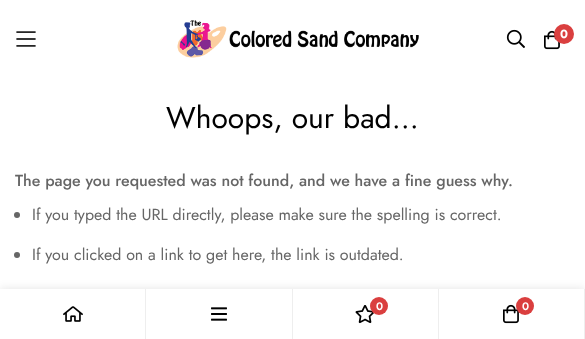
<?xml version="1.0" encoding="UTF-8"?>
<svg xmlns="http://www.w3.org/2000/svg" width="585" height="339">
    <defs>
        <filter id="blur1" x="-50%" y="-200%" width="200%" height="500%"><feGaussianBlur stdDeviation="5"/></filter>
    </defs>
    <rect width="100%" height="100%" fill="#FFFFFF"/>
    <image x="16" y="31" width="20" height="16" href="img_01.png"/>
    <image x="177" y="20" width="242" height="38" href="img_02.png"/>
    <image x="506" y="29" width="19" height="19" href="img_03.png"/>
    <image x="544" y="30" width="16" height="20" href="img_04.png"/>
    <circle cx="564" cy="34" r="10" fill="#DA3F3F"/>
    <text x="560" y="38" font-family="Jost" font-size="12" font-weight="700" fill="#FFFFFF">0</text>
    <text x="166" y="128" font-family="Jost" font-size="30" fill="#000000">Whoops, our bad...</text>
    <text x="15" y="186" font-family="Jost" font-size="16" font-weight="500" fill="#666666">The page you requested was not found, and we have a fine guess why.</text>
    <circle cx="17" cy="215" r="3" fill="#666666"/>
    <text x="32" y="220" font-family="Jost" font-size="16" fill="#666666">If you typed the URL directly, please make sure the spelling is correct.</text>
    <circle cx="17" cy="255" r="3" fill="#666666"/>
    <text x="32" y="260" font-family="Jost" font-size="16" fill="#666666">If you clicked on a link to get here, the link is outdated.</text>
    <rect x="0" y="289" width="585" height="50" fill="#000000" fill-opacity="0.11" filter="url(#blur1)"/>
    <rect x="0" y="289" width="584" height="50" fill="#FFFFFF"/>
    <rect x="145" y="289" width="1" height="50" fill="#EEEEEE"/>
    <image x="63" y="306" width="20" height="16" href="img_05.png"/>
    <rect x="292" y="289" width="1" height="50" fill="#EEEEEE"/>
    <image x="211" y="307" width="16" height="14" href="img_06.png"/>
    <rect x="438" y="289" width="1" height="50" fill="#EEEEEE"/>
    <image x="355" y="305" width="19" height="19" href="img_07.png"/>
    <circle cx="379" cy="306" r="9" fill="#DA3F3F"/>
    <text x="376" y="310" font-family="Jost" font-size="11" font-weight="600" fill="#FFFFFF">0</text>
    <rect x="584" y="289" width="1" height="50" fill="#EEEEEE"/>
    <image x="503" y="304" width="16" height="20" href="img_04.png"/>
    <circle cx="525" cy="306" r="9" fill="#DA3F3F"/>
    <text x="522" y="310" font-family="Jost" font-size="11" font-weight="600" fill="#FFFFFF">0</text>
</svg>
